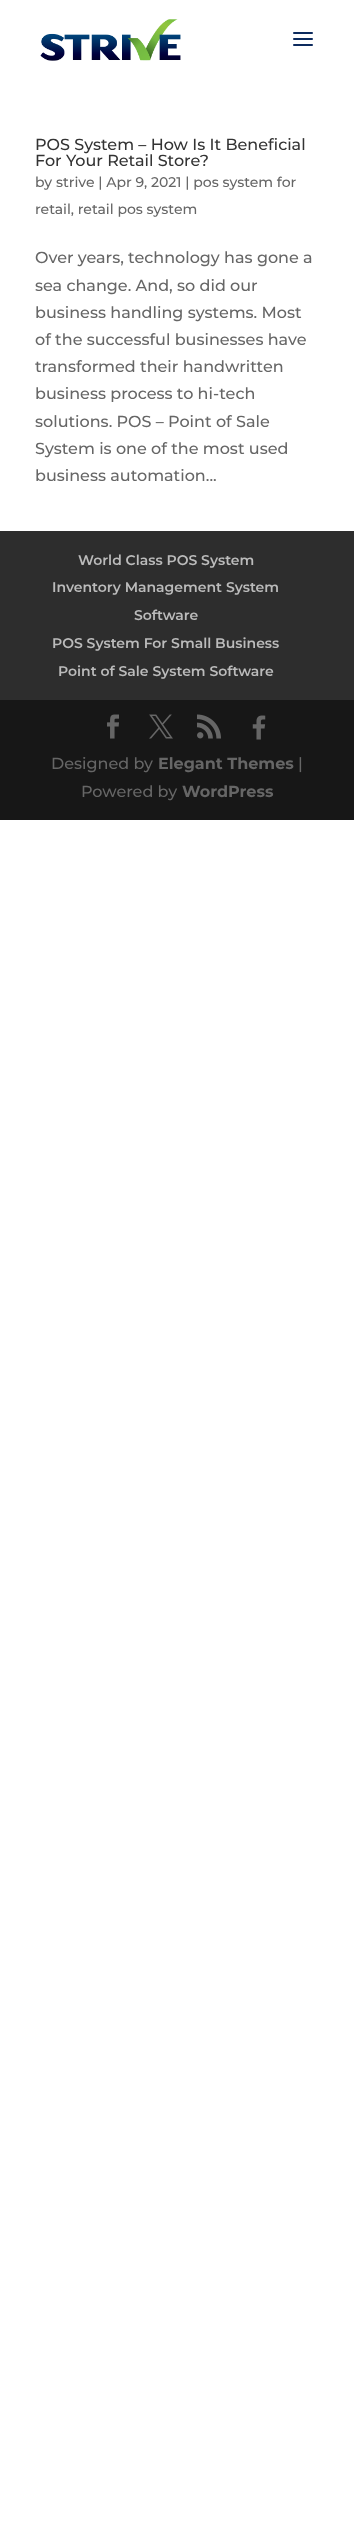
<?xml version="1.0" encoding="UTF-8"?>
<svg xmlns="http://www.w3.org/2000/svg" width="354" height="2529">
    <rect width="100%" height="100%" fill="#FFFFFF"/>
    <image x="40" y="19" width="141" height="42" href="img_01.png"/>
    <image x="293" y="32" width="20" height="14" href="img_02.png"/>
    <text font-family="Montserrat" font-size="16" font-weight="100" fill="#333333">
        <tspan x="35" y="150">POS System – How Is It Beneficial</tspan>
        <tspan x="35" y="166">For Your Retail Store?</tspan>
    </text>
    <text font-family="Montserrat" font-size="14" font-weight="100" fill="#666666">
        <tspan x="35" y="187">by strive | Apr 9, 2021 | pos system for</tspan>
        <tspan x="35" y="214">retail, retail pos system</tspan>
    </text>
    <text font-family="Montserrat" font-size="16" font-weight="100" fill="#666666">
        <tspan x="35" y="263">Over years, technology has gone a</tspan>
        <tspan x="35" y="291">sea change. And, so did our</tspan>
        <tspan x="35" y="318">business handling systems. Most</tspan>
        <tspan x="35" y="345">of the successful businesses have</tspan>
        <tspan x="35" y="372">transformed their handwritten</tspan>
        <tspan x="35" y="399">business process to hi-tech</tspan>
        <tspan x="35" y="427">solutions. POS – Point of Sale</tspan>
        <tspan x="35" y="454">System is one of the most used</tspan>
        <tspan x="35" y="481">business automation...</tspan>
    </text>
    <rect x="0" y="531" width="354" height="169" fill="#2D2D2D"/>
    <text x="78" y="565" font-family="'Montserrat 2'" font-size="14" font-weight="100" fill="#BBBBBB">World Class POS System</text>
    <text x="52" y="592" font-family="'Montserrat 2'" font-size="14" font-weight="100" fill="#BBBBBB">Inventory Management System</text>
    <text x="134" y="620" font-family="'Montserrat 2'" font-size="14" font-weight="100" fill="#BBBBBB">Software</text>
    <text x="52" y="648" font-family="'Montserrat 2'" font-size="14" font-weight="100" fill="#BBBBBB">POS System For Small Business</text>
    <text x="58" y="676" font-family="'Montserrat 2'" font-size="14" font-weight="100" fill="#BBBBBB">Point of Sale System Software</text>
    <rect x="0" y="700" width="354" height="120" fill="#171717"/>
    <image x="107" y="714" width="12" height="25" href="img_03.png"/>
    <image x="149" y="714" width="24" height="25" href="img_04.png"/>
    <image x="197" y="714" width="24" height="25" href="img_05.png"/>
    <image x="252" y="715" width="14" height="25" href="img_06.png"/>
    <text x="51" y="769" font-family="Montserrat" font-size="16" font-weight="100" fill="#666666">Designed by</text>
    <text x="158" y="769" font-family="'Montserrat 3'" font-size="16" font-weight="100" fill="#666666">Elegant Themes</text>
    <text x="298" y="769" font-family="Montserrat" font-size="16" font-weight="100" fill="#666666">|</text>
    <text x="81" y="797" font-family="Montserrat" font-size="16" font-weight="100" fill="#666666">Powered by</text>
    <text x="182" y="797" font-family="'Montserrat 3'" font-size="16" font-weight="100" fill="#666666">WordPress</text>
</svg>
